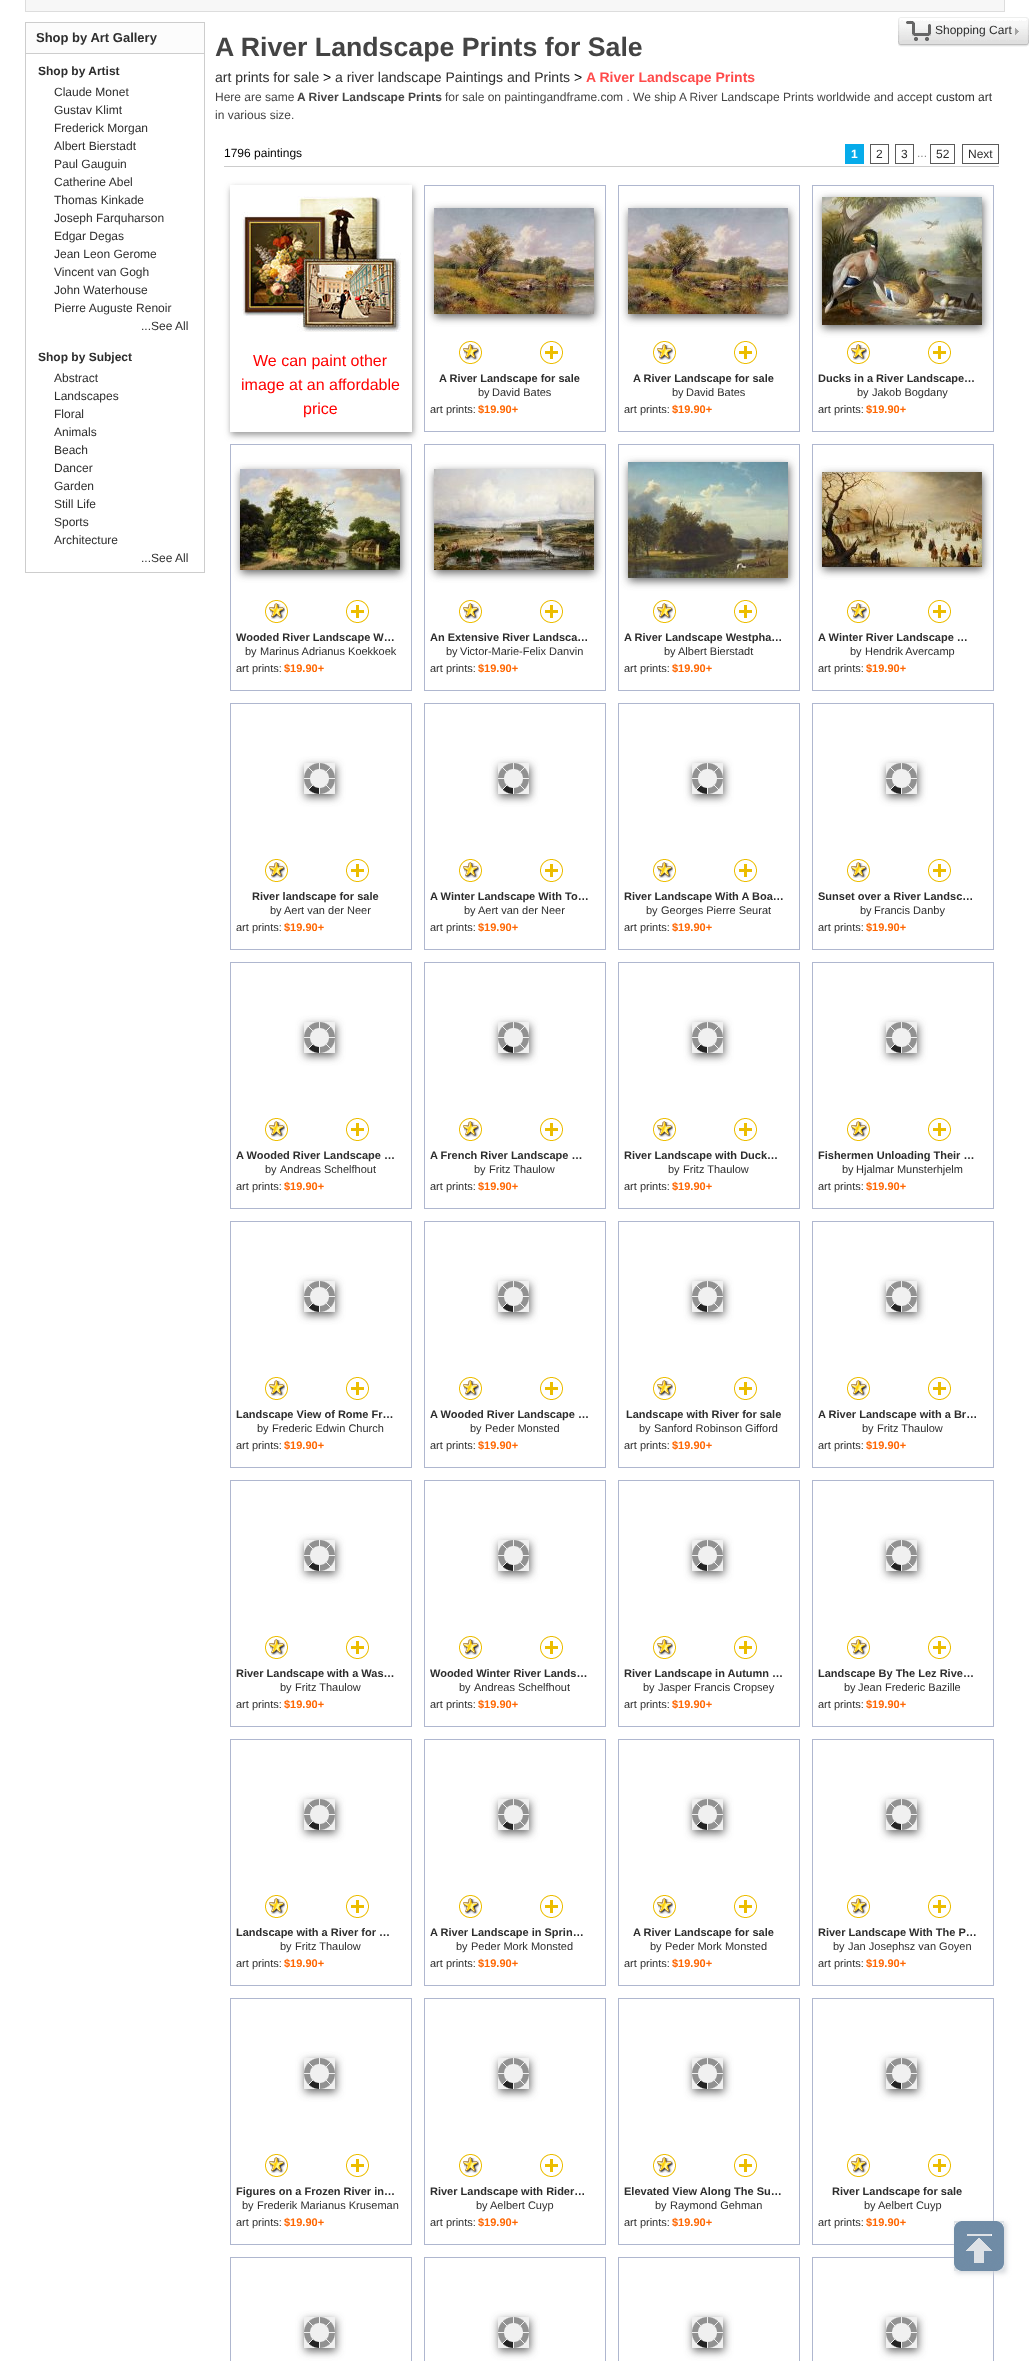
<?xml version="1.0" encoding="UTF-8"?>
<svg xmlns="http://www.w3.org/2000/svg" width="1029" height="2361">
    <defs>
        <clipPath id="clip1"><path d="M 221 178 H 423 V 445 H 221 Z M 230 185 H 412 V 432 H 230 Z" clip-rule="evenodd"/></clipPath>
        <filter id="blur1" x="-50%" y="-200%" width="200%" height="500%"><feGaussianBlur stdDeviation="3"/></filter>
        <filter id="blur2" x="-50%" y="-200%" width="200%" height="500%"><feGaussianBlur stdDeviation="4"/></filter>
        <clipPath id="clip2"><path d="M 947 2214 H 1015 V 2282 H 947 Z M 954 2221 H 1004 V 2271 H 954 Z" clip-rule="evenodd"/></clipPath>
        <filter id="blur3" x="-50%" y="-200%" width="200%" height="500%"><feGaussianBlur stdDeviation="2.5"/></filter>
    </defs>
    <rect width="100%" height="100%" fill="#FFFFFF"/>
    <rect x="25.5" y="-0.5" width="979" height="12" fill="#F7F7F7" stroke="#DDDDDD"/>
    <image x="898" y="17" width="131" height="30" href="img_01.png"/>
    <text x="935" y="34" font-family="Liberation Sans" font-size="12" fill="#2D2D2D">Shopping Cart</text>
    <image x="1015" y="28" width="4" height="7" href="img_02.png"/>
    <rect x="25.5" y="22.5" width="179" height="31" fill="#FCFCFC" stroke="#CDCDCD"/>
    <text x="36" y="42" font-family="Liberation Sans" font-size="13" font-weight="700" fill="#2D2D2D">Shop by Art Gallery</text>
    <rect x="204" y="54" width="1" height="519" fill="#CDCDCD"/>
    <rect x="25" y="572" width="180" height="1" fill="#CDCDCD"/>
    <rect x="25" y="54" width="1" height="519" fill="#CDCDCD"/>
    <text x="38" y="75" font-family="Liberation Sans" font-size="12" font-weight="700" fill="#2D2D2D">Shop by Artist</text>
    <text font-family="Liberation Sans" font-size="12" fill="#2D2D2D">
        <tspan x="54" y="96">Claude Monet</tspan>
        <tspan x="54" y="114">Gustav Klimt</tspan>
        <tspan x="54" y="132">Frederick Morgan</tspan>
        <tspan x="54" y="150">Albert Bierstadt</tspan>
        <tspan x="54" y="168">Paul Gauguin</tspan>
        <tspan x="54" y="186">Catherine Abel</tspan>
        <tspan x="54" y="204">Thomas Kinkade</tspan>
        <tspan x="54" y="222">Joseph Farquharson</tspan>
        <tspan x="54" y="240">Edgar Degas</tspan>
        <tspan x="54" y="258">Jean Leon Gerome</tspan>
        <tspan x="54" y="276">Vincent van Gogh</tspan>
        <tspan x="54" y="294">John Waterhouse</tspan>
        <tspan x="54" y="312">Pierre Auguste Renoir</tspan>
    </text>
    <text x="141" y="330" font-family="Liberation Sans" font-size="12" fill="#2D2D2D">...See All</text>
    <text x="38" y="361" font-family="Liberation Sans" font-size="12" font-weight="700" fill="#2D2D2D">Shop by Subject</text>
    <text font-family="Liberation Sans" font-size="12" fill="#2D2D2D">
        <tspan x="54" y="382">Abstract</tspan>
        <tspan x="54" y="400">Landscapes</tspan>
        <tspan x="54" y="418">Floral</tspan>
        <tspan x="54" y="436">Animals</tspan>
        <tspan x="54" y="454">Beach</tspan>
        <tspan x="54" y="472">Dancer</tspan>
        <tspan x="54" y="490">Garden</tspan>
        <tspan x="54" y="508">Still Life</tspan>
        <tspan x="54" y="526">Sports</tspan>
        <tspan x="54" y="544">Architecture</tspan>
    </text>
    <text x="141" y="562" font-family="Liberation Sans" font-size="12" fill="#2D2D2D">...See All</text>
    <text x="215" y="56" font-family="Liberation Sans" font-size="26.7" font-weight="700" fill="#444444">A River Landscape Prints for Sale</text>
    <text x="215" y="82" font-family="Liberation Sans" font-size="14" fill="#2D2D2D">art prints for sale</text>
    <text x="323" y="82" font-family="Liberation Sans" font-size="14" fill="#000000">&gt;</text>
    <text x="335" y="82" font-family="Liberation Sans" font-size="14" fill="#2D2D2D">a river landscape Paintings and Prints</text>
    <text x="574" y="82" font-family="Liberation Sans" font-size="14" fill="#000000">&gt;</text>
    <text x="586" y="82" font-family="Liberation Sans" font-size="14" font-weight="700" fill="#FF4A4A">A River Landscape Prints</text>
    <text x="215" y="101" font-family="Liberation Sans" font-size="12" fill="#444444">Here are same</text>
    <text x="297" y="101" font-family="Liberation Sans" font-size="12" font-weight="700" fill="#444444">A River Landscape Prints</text>
    <text x="445" y="101" font-family="Liberation Sans" font-size="12" fill="#444444">for sale on paintingandframe.com . We ship A River Landscape Prints worldwide and accept</text>
    <text x="936" y="101" font-family="Liberation Sans" font-size="12" fill="#2D2D2D">custom art</text>
    <text x="215" y="119" font-family="Liberation Sans" font-size="12" fill="#444444">in various size.</text>
    <rect x="224" y="166" width="775" height="1" fill="#CCCCCC"/>
    <text x="224" y="157" font-family="Liberation Sans" font-size="12" fill="#000000">1796 paintings</text>
    <rect x="845" y="144" width="19" height="20" fill="#06ABEA"/>
    <text x="851" y="158" font-family="Liberation Sans" font-size="12" font-weight="700" fill="#FFFFFF">1</text>
    <rect x="870.5" y="144.5" width="18" height="19" fill="none" stroke="#5A5A5A"/>
    <text x="876" y="158" font-family="Liberation Sans" font-size="12" fill="#2D2D2D">2</text>
    <rect x="895.5" y="144.5" width="18" height="19" fill="none" stroke="#5A5A5A"/>
    <text x="901" y="158" font-family="Liberation Sans" font-size="12" fill="#2D2D2D">3</text>
    <text x="917" y="157" font-family="Liberation Sans" font-size="12" fill="#888888">...</text>
    <rect x="930.5" y="144.5" width="24" height="19" fill="none" stroke="#5A5A5A"/>
    <text x="936" y="158" font-family="Liberation Sans" font-size="12" fill="#2D2D2D">52</text>
    <rect x="962.5" y="144.5" width="36" height="19" fill="none" stroke="#5A5A5A"/>
    <text x="968" y="158" font-family="Liberation Sans" font-size="12" fill="#2D2D2D">Next</text>
    <g clip-path="url(#clip1)">
        <rect x="231" y="188" width="182" height="247" fill="#999999" filter="url(#blur1)"/>
    </g>
    <image x="241" y="196" width="160" height="136" href="img_03.png"/>
    <text x="253" y="366" font-family="Liberation Sans" font-size="16" fill="#FF0000">We can paint other</text>
    <text x="241" y="390" font-family="Liberation Sans" font-size="16" fill="#FF0000">image at an affordable</text>
    <text x="303" y="414" font-family="Liberation Sans" font-size="16" fill="#FF0000">price</text>
    <rect x="424.5" y="185.5" width="181" height="246" fill="none" stroke="#AFB7CF"/>
    <rect x="435" y="211" width="160" height="106" fill="#666666" filter="url(#blur2)"/>
    <image x="434" y="208" width="160" height="106" href="img_04.png"/>
    <image x="459" y="341" width="23" height="23" href="img_05.png"/>
    <image x="540" y="341" width="23" height="23" href="img_06.png"/>
    <text x="439" y="382" font-family="Liberation Sans" font-size="11" font-weight="700" fill="#2D2D2D">A River Landscape for sale</text>
    <text x="478" y="396" font-family="Liberation Sans" font-size="11" fill="#2D2D2D">by</text>
    <text x="492" y="396" font-family="Liberation Sans" font-size="11" fill="#2D2D2D">David Bates</text>
    <text x="430" y="413" font-family="Liberation Sans" font-size="11" fill="#2D2D2D">art prints:</text>
    <text x="478" y="413" font-family="Liberation Sans" font-size="11" font-weight="700" fill="#FF6600">$19.90+</text>
    <rect x="618.5" y="185.5" width="181" height="246" fill="none" stroke="#AFB7CF"/>
    <rect x="629" y="211" width="160" height="106" fill="#666666" filter="url(#blur2)"/>
    <image x="628" y="208" width="160" height="106" href="img_07.png"/>
    <image x="653" y="341" width="23" height="23" href="img_05.png"/>
    <image x="734" y="341" width="23" height="23" href="img_06.png"/>
    <text x="633" y="382" font-family="Liberation Sans" font-size="11" font-weight="700" fill="#2D2D2D">A River Landscape for sale</text>
    <text x="672" y="396" font-family="Liberation Sans" font-size="11" fill="#2D2D2D">by</text>
    <text x="686" y="396" font-family="Liberation Sans" font-size="11" fill="#2D2D2D">David Bates</text>
    <text x="624" y="413" font-family="Liberation Sans" font-size="11" fill="#2D2D2D">art prints:</text>
    <text x="672" y="413" font-family="Liberation Sans" font-size="11" font-weight="700" fill="#FF6600">$19.90+</text>
    <rect x="812.5" y="185.5" width="181" height="246" fill="none" stroke="#AFB7CF"/>
    <rect x="823" y="200" width="160" height="128" fill="#666666" filter="url(#blur2)"/>
    <image x="822" y="197" width="160" height="128" href="img_08.png"/>
    <image x="847" y="341" width="23" height="23" href="img_05.png"/>
    <image x="928" y="341" width="23" height="23" href="img_06.png"/>
    <text x="818" y="382" font-family="Liberation Sans" font-size="11" font-weight="700" fill="#2D2D2D">Ducks in a River Landscape…</text>
    <text x="857" y="396" font-family="Liberation Sans" font-size="11" fill="#2D2D2D">by</text>
    <text x="872" y="396" font-family="Liberation Sans" font-size="11" fill="#2D2D2D">Jakob Bogdany</text>
    <text x="818" y="413" font-family="Liberation Sans" font-size="11" fill="#2D2D2D">art prints:</text>
    <text x="866" y="413" font-family="Liberation Sans" font-size="11" font-weight="700" fill="#FF6600">$19.90+</text>
    <rect x="230.5" y="444.5" width="181" height="246" fill="none" stroke="#AFB7CF"/>
    <rect x="241" y="472" width="160" height="101" fill="#666666" filter="url(#blur2)"/>
    <image x="240" y="469" width="160" height="101" href="img_09.png"/>
    <image x="265" y="600" width="23" height="23" href="img_05.png"/>
    <image x="346" y="600" width="23" height="23" href="img_06.png"/>
    <text x="236" y="641" font-family="Liberation Sans" font-size="11" font-weight="700" fill="#2D2D2D">Wooded River Landscape W…</text>
    <text x="245" y="655" font-family="Liberation Sans" font-size="11" fill="#2D2D2D">by</text>
    <text x="260" y="655" font-family="Liberation Sans" font-size="11" fill="#2D2D2D">Marinus Adrianus Koekkoek</text>
    <text x="236" y="672" font-family="Liberation Sans" font-size="11" fill="#2D2D2D">art prints:</text>
    <text x="284" y="672" font-family="Liberation Sans" font-size="11" font-weight="700" fill="#FF6600">$19.90+</text>
    <rect x="424.5" y="444.5" width="181" height="246" fill="none" stroke="#AFB7CF"/>
    <rect x="435" y="472" width="160" height="101" fill="#666666" filter="url(#blur2)"/>
    <image x="434" y="469" width="160" height="101" href="img_10.png"/>
    <image x="459" y="600" width="23" height="23" href="img_05.png"/>
    <image x="540" y="600" width="23" height="23" href="img_06.png"/>
    <text x="430" y="641" font-family="Liberation Sans" font-size="11" font-weight="700" fill="#2D2D2D">An Extensive River Landsca…</text>
    <text x="446" y="655" font-family="Liberation Sans" font-size="11" fill="#2D2D2D">by</text>
    <text x="460" y="655" font-family="Liberation Sans" font-size="11" fill="#2D2D2D">Victor-Marie-Felix Danvin</text>
    <text x="430" y="672" font-family="Liberation Sans" font-size="11" fill="#2D2D2D">art prints:</text>
    <text x="478" y="672" font-family="Liberation Sans" font-size="11" font-weight="700" fill="#FF6600">$19.90+</text>
    <rect x="618.5" y="444.5" width="181" height="246" fill="none" stroke="#AFB7CF"/>
    <rect x="629" y="465" width="160" height="116" fill="#666666" filter="url(#blur2)"/>
    <image x="628" y="462" width="160" height="116" href="img_11.png"/>
    <image x="653" y="600" width="23" height="23" href="img_05.png"/>
    <image x="734" y="600" width="23" height="23" href="img_06.png"/>
    <text x="624" y="641" font-family="Liberation Sans" font-size="11" font-weight="700" fill="#2D2D2D">A River Landscape Westpha…</text>
    <text x="664" y="655" font-family="Liberation Sans" font-size="11" fill="#2D2D2D">by</text>
    <text x="678" y="655" font-family="Liberation Sans" font-size="11" fill="#2D2D2D">Albert Bierstadt</text>
    <text x="624" y="672" font-family="Liberation Sans" font-size="11" fill="#2D2D2D">art prints:</text>
    <text x="672" y="672" font-family="Liberation Sans" font-size="11" font-weight="700" fill="#FF6600">$19.90+</text>
    <rect x="812.5" y="444.5" width="181" height="246" fill="none" stroke="#AFB7CF"/>
    <rect x="823" y="475" width="160" height="95" fill="#666666" filter="url(#blur2)"/>
    <image x="822" y="472" width="160" height="95" href="img_12.png"/>
    <image x="847" y="600" width="23" height="23" href="img_05.png"/>
    <image x="928" y="600" width="23" height="23" href="img_06.png"/>
    <text x="818" y="641" font-family="Liberation Sans" font-size="11" font-weight="700" fill="#2D2D2D">A Winter River Landscape …</text>
    <text x="850" y="655" font-family="Liberation Sans" font-size="11" fill="#2D2D2D">by</text>
    <text x="865" y="655" font-family="Liberation Sans" font-size="11" fill="#2D2D2D">Hendrik Avercamp</text>
    <text x="818" y="672" font-family="Liberation Sans" font-size="11" fill="#2D2D2D">art prints:</text>
    <text x="866" y="672" font-family="Liberation Sans" font-size="11" font-weight="700" fill="#FF6600">$19.90+</text>
    <rect x="230.5" y="703.5" width="181" height="246" fill="none" stroke="#AFB7CF"/>
    <rect x="305" y="766" width="31" height="31" fill="#666666" filter="url(#blur2)"/>
    <image x="304" y="763" width="31" height="31" href="img_13.png"/>
    <image x="265" y="859" width="23" height="23" href="img_05.png"/>
    <image x="346" y="859" width="23" height="23" href="img_06.png"/>
    <text x="252" y="900" font-family="Liberation Sans" font-size="11" font-weight="700" fill="#2D2D2D">River landscape for sale</text>
    <text x="270" y="914" font-family="Liberation Sans" font-size="11" fill="#2D2D2D">by</text>
    <text x="284" y="914" font-family="Liberation Sans" font-size="11" fill="#2D2D2D">Aert van der Neer</text>
    <text x="236" y="931" font-family="Liberation Sans" font-size="11" fill="#2D2D2D">art prints:</text>
    <text x="284" y="931" font-family="Liberation Sans" font-size="11" font-weight="700" fill="#FF6600">$19.90+</text>
    <rect x="424.5" y="703.5" width="181" height="246" fill="none" stroke="#AFB7CF"/>
    <rect x="499" y="766" width="31" height="31" fill="#666666" filter="url(#blur2)"/>
    <image x="498" y="763" width="31" height="31" href="img_13.png"/>
    <image x="459" y="859" width="23" height="23" href="img_05.png"/>
    <image x="540" y="859" width="23" height="23" href="img_06.png"/>
    <text x="430" y="900" font-family="Liberation Sans" font-size="11" font-weight="700" fill="#2D2D2D">A Winter Landscape With To…</text>
    <text x="464" y="914" font-family="Liberation Sans" font-size="11" fill="#2D2D2D">by</text>
    <text x="478" y="914" font-family="Liberation Sans" font-size="11" fill="#2D2D2D">Aert van der Neer</text>
    <text x="430" y="931" font-family="Liberation Sans" font-size="11" fill="#2D2D2D">art prints:</text>
    <text x="478" y="931" font-family="Liberation Sans" font-size="11" font-weight="700" fill="#FF6600">$19.90+</text>
    <rect x="618.5" y="703.5" width="181" height="246" fill="none" stroke="#AFB7CF"/>
    <rect x="693" y="766" width="31" height="31" fill="#666666" filter="url(#blur2)"/>
    <image x="692" y="763" width="31" height="31" href="img_13.png"/>
    <image x="653" y="859" width="23" height="23" href="img_05.png"/>
    <image x="734" y="859" width="23" height="23" href="img_06.png"/>
    <text x="624" y="900" font-family="Liberation Sans" font-size="11" font-weight="700" fill="#2D2D2D">River Landscape With A Boa…</text>
    <text x="646" y="914" font-family="Liberation Sans" font-size="11" fill="#2D2D2D">by</text>
    <text x="661" y="914" font-family="Liberation Sans" font-size="11" fill="#2D2D2D">Georges Pierre Seurat</text>
    <text x="624" y="931" font-family="Liberation Sans" font-size="11" fill="#2D2D2D">art prints:</text>
    <text x="672" y="931" font-family="Liberation Sans" font-size="11" font-weight="700" fill="#FF6600">$19.90+</text>
    <rect x="812.5" y="703.5" width="181" height="246" fill="none" stroke="#AFB7CF"/>
    <rect x="887" y="766" width="31" height="31" fill="#666666" filter="url(#blur2)"/>
    <image x="886" y="763" width="31" height="31" href="img_13.png"/>
    <image x="847" y="859" width="23" height="23" href="img_05.png"/>
    <image x="928" y="859" width="23" height="23" href="img_06.png"/>
    <text x="818" y="900" font-family="Liberation Sans" font-size="11" font-weight="700" fill="#2D2D2D">Sunset over a River Landsc…</text>
    <text x="860" y="914" font-family="Liberation Sans" font-size="11" fill="#2D2D2D">by</text>
    <text x="874" y="914" font-family="Liberation Sans" font-size="11" fill="#2D2D2D">Francis Danby</text>
    <text x="818" y="931" font-family="Liberation Sans" font-size="11" fill="#2D2D2D">art prints:</text>
    <text x="866" y="931" font-family="Liberation Sans" font-size="11" font-weight="700" fill="#FF6600">$19.90+</text>
    <rect x="230.5" y="962.5" width="181" height="246" fill="none" stroke="#AFB7CF"/>
    <rect x="305" y="1025" width="31" height="31" fill="#666666" filter="url(#blur2)"/>
    <image x="304" y="1022" width="31" height="31" href="img_13.png"/>
    <image x="265" y="1118" width="23" height="23" href="img_05.png"/>
    <image x="346" y="1118" width="23" height="23" href="img_06.png"/>
    <text x="236" y="1159" font-family="Liberation Sans" font-size="11" font-weight="700" fill="#2D2D2D">A Wooded River Landscape …</text>
    <text x="265" y="1173" font-family="Liberation Sans" font-size="11" fill="#2D2D2D">by</text>
    <text x="280" y="1173" font-family="Liberation Sans" font-size="11" fill="#2D2D2D">Andreas Schelfhout</text>
    <text x="236" y="1190" font-family="Liberation Sans" font-size="11" fill="#2D2D2D">art prints:</text>
    <text x="284" y="1190" font-family="Liberation Sans" font-size="11" font-weight="700" fill="#FF6600">$19.90+</text>
    <rect x="424.5" y="962.5" width="181" height="246" fill="none" stroke="#AFB7CF"/>
    <rect x="499" y="1025" width="31" height="31" fill="#666666" filter="url(#blur2)"/>
    <image x="498" y="1022" width="31" height="31" href="img_13.png"/>
    <image x="459" y="1118" width="23" height="23" href="img_05.png"/>
    <image x="540" y="1118" width="23" height="23" href="img_06.png"/>
    <text x="430" y="1159" font-family="Liberation Sans" font-size="11" font-weight="700" fill="#2D2D2D">A French River Landscape …</text>
    <text x="474" y="1173" font-family="Liberation Sans" font-size="11" fill="#2D2D2D">by</text>
    <text x="489" y="1173" font-family="Liberation Sans" font-size="11" fill="#2D2D2D">Fritz Thaulow</text>
    <text x="430" y="1190" font-family="Liberation Sans" font-size="11" fill="#2D2D2D">art prints:</text>
    <text x="478" y="1190" font-family="Liberation Sans" font-size="11" font-weight="700" fill="#FF6600">$19.90+</text>
    <rect x="618.5" y="962.5" width="181" height="246" fill="none" stroke="#AFB7CF"/>
    <rect x="693" y="1025" width="31" height="31" fill="#666666" filter="url(#blur2)"/>
    <image x="692" y="1022" width="31" height="31" href="img_13.png"/>
    <image x="653" y="1118" width="23" height="23" href="img_05.png"/>
    <image x="734" y="1118" width="23" height="23" href="img_06.png"/>
    <text x="624" y="1159" font-family="Liberation Sans" font-size="11" font-weight="700" fill="#2D2D2D">River Landscape with Duck…</text>
    <text x="668" y="1173" font-family="Liberation Sans" font-size="11" fill="#2D2D2D">by</text>
    <text x="683" y="1173" font-family="Liberation Sans" font-size="11" fill="#2D2D2D">Fritz Thaulow</text>
    <text x="624" y="1190" font-family="Liberation Sans" font-size="11" fill="#2D2D2D">art prints:</text>
    <text x="672" y="1190" font-family="Liberation Sans" font-size="11" font-weight="700" fill="#FF6600">$19.90+</text>
    <rect x="812.5" y="962.5" width="181" height="246" fill="none" stroke="#AFB7CF"/>
    <rect x="887" y="1025" width="31" height="31" fill="#666666" filter="url(#blur2)"/>
    <image x="886" y="1022" width="31" height="31" href="img_13.png"/>
    <image x="847" y="1118" width="23" height="23" href="img_05.png"/>
    <image x="928" y="1118" width="23" height="23" href="img_06.png"/>
    <text x="818" y="1159" font-family="Liberation Sans" font-size="11" font-weight="700" fill="#2D2D2D">Fishermen Unloading Their …</text>
    <text x="842" y="1173" font-family="Liberation Sans" font-size="11" fill="#2D2D2D">by</text>
    <text x="856" y="1173" font-family="Liberation Sans" font-size="11" fill="#2D2D2D">Hjalmar Munsterhjelm</text>
    <text x="818" y="1190" font-family="Liberation Sans" font-size="11" fill="#2D2D2D">art prints:</text>
    <text x="866" y="1190" font-family="Liberation Sans" font-size="11" font-weight="700" fill="#FF6600">$19.90+</text>
    <rect x="230.5" y="1221.5" width="181" height="246" fill="none" stroke="#AFB7CF"/>
    <rect x="305" y="1284" width="31" height="31" fill="#666666" filter="url(#blur2)"/>
    <image x="304" y="1281" width="31" height="31" href="img_13.png"/>
    <image x="265" y="1377" width="23" height="23" href="img_05.png"/>
    <image x="346" y="1377" width="23" height="23" href="img_06.png"/>
    <text x="236" y="1418" font-family="Liberation Sans" font-size="11" font-weight="700" fill="#2D2D2D">Landscape View of Rome Fr…</text>
    <text x="257" y="1432" font-family="Liberation Sans" font-size="11" fill="#2D2D2D">by</text>
    <text x="272" y="1432" font-family="Liberation Sans" font-size="11" fill="#2D2D2D">Frederic Edwin Church</text>
    <text x="236" y="1449" font-family="Liberation Sans" font-size="11" fill="#2D2D2D">art prints:</text>
    <text x="284" y="1449" font-family="Liberation Sans" font-size="11" font-weight="700" fill="#FF6600">$19.90+</text>
    <rect x="424.5" y="1221.5" width="181" height="246" fill="none" stroke="#AFB7CF"/>
    <rect x="499" y="1284" width="31" height="31" fill="#666666" filter="url(#blur2)"/>
    <image x="498" y="1281" width="31" height="31" href="img_13.png"/>
    <image x="459" y="1377" width="23" height="23" href="img_05.png"/>
    <image x="540" y="1377" width="23" height="23" href="img_06.png"/>
    <text x="430" y="1418" font-family="Liberation Sans" font-size="11" font-weight="700" fill="#2D2D2D">A Wooded River Landscape …</text>
    <text x="470" y="1432" font-family="Liberation Sans" font-size="11" fill="#2D2D2D">by</text>
    <text x="485" y="1432" font-family="Liberation Sans" font-size="11" fill="#2D2D2D">Peder Monsted</text>
    <text x="430" y="1449" font-family="Liberation Sans" font-size="11" fill="#2D2D2D">art prints:</text>
    <text x="478" y="1449" font-family="Liberation Sans" font-size="11" font-weight="700" fill="#FF6600">$19.90+</text>
    <rect x="618.5" y="1221.5" width="181" height="246" fill="none" stroke="#AFB7CF"/>
    <rect x="693" y="1284" width="31" height="31" fill="#666666" filter="url(#blur2)"/>
    <image x="692" y="1281" width="31" height="31" href="img_13.png"/>
    <image x="653" y="1377" width="23" height="23" href="img_05.png"/>
    <image x="734" y="1377" width="23" height="23" href="img_06.png"/>
    <text x="626" y="1418" font-family="Liberation Sans" font-size="11" font-weight="700" fill="#2D2D2D">Landscape with River for sale</text>
    <text x="639" y="1432" font-family="Liberation Sans" font-size="11" fill="#2D2D2D">by</text>
    <text x="654" y="1432" font-family="Liberation Sans" font-size="11" fill="#2D2D2D">Sanford Robinson Gifford</text>
    <text x="624" y="1449" font-family="Liberation Sans" font-size="11" fill="#2D2D2D">art prints:</text>
    <text x="672" y="1449" font-family="Liberation Sans" font-size="11" font-weight="700" fill="#FF6600">$19.90+</text>
    <rect x="812.5" y="1221.5" width="181" height="246" fill="none" stroke="#AFB7CF"/>
    <rect x="887" y="1284" width="31" height="31" fill="#666666" filter="url(#blur2)"/>
    <image x="886" y="1281" width="31" height="31" href="img_13.png"/>
    <image x="847" y="1377" width="23" height="23" href="img_05.png"/>
    <image x="928" y="1377" width="23" height="23" href="img_06.png"/>
    <text x="818" y="1418" font-family="Liberation Sans" font-size="11" font-weight="700" fill="#2D2D2D">A River Landscape with a Br…</text>
    <text x="862" y="1432" font-family="Liberation Sans" font-size="11" fill="#2D2D2D">by</text>
    <text x="877" y="1432" font-family="Liberation Sans" font-size="11" fill="#2D2D2D">Fritz Thaulow</text>
    <text x="818" y="1449" font-family="Liberation Sans" font-size="11" fill="#2D2D2D">art prints:</text>
    <text x="866" y="1449" font-family="Liberation Sans" font-size="11" font-weight="700" fill="#FF6600">$19.90+</text>
    <rect x="230.5" y="1480.5" width="181" height="246" fill="none" stroke="#AFB7CF"/>
    <rect x="305" y="1543" width="31" height="31" fill="#666666" filter="url(#blur2)"/>
    <image x="304" y="1540" width="31" height="31" href="img_13.png"/>
    <image x="265" y="1636" width="23" height="23" href="img_05.png"/>
    <image x="346" y="1636" width="23" height="23" href="img_06.png"/>
    <text x="236" y="1677" font-family="Liberation Sans" font-size="11" font-weight="700" fill="#2D2D2D">River Landscape with a Was…</text>
    <text x="280" y="1691" font-family="Liberation Sans" font-size="11" fill="#2D2D2D">by</text>
    <text x="295" y="1691" font-family="Liberation Sans" font-size="11" fill="#2D2D2D">Fritz Thaulow</text>
    <text x="236" y="1708" font-family="Liberation Sans" font-size="11" fill="#2D2D2D">art prints:</text>
    <text x="284" y="1708" font-family="Liberation Sans" font-size="11" font-weight="700" fill="#FF6600">$19.90+</text>
    <rect x="424.5" y="1480.5" width="181" height="246" fill="none" stroke="#AFB7CF"/>
    <rect x="499" y="1543" width="31" height="31" fill="#666666" filter="url(#blur2)"/>
    <image x="498" y="1540" width="31" height="31" href="img_13.png"/>
    <image x="459" y="1636" width="23" height="23" href="img_05.png"/>
    <image x="540" y="1636" width="23" height="23" href="img_06.png"/>
    <text x="430" y="1677" font-family="Liberation Sans" font-size="11" font-weight="700" fill="#2D2D2D">Wooded Winter River Lands…</text>
    <text x="459" y="1691" font-family="Liberation Sans" font-size="11" fill="#2D2D2D">by</text>
    <text x="474" y="1691" font-family="Liberation Sans" font-size="11" fill="#2D2D2D">Andreas Schelfhout</text>
    <text x="430" y="1708" font-family="Liberation Sans" font-size="11" fill="#2D2D2D">art prints:</text>
    <text x="478" y="1708" font-family="Liberation Sans" font-size="11" font-weight="700" fill="#FF6600">$19.90+</text>
    <rect x="618.5" y="1480.5" width="181" height="246" fill="none" stroke="#AFB7CF"/>
    <rect x="693" y="1543" width="31" height="31" fill="#666666" filter="url(#blur2)"/>
    <image x="692" y="1540" width="31" height="31" href="img_13.png"/>
    <image x="653" y="1636" width="23" height="23" href="img_05.png"/>
    <image x="734" y="1636" width="23" height="23" href="img_06.png"/>
    <text x="624" y="1677" font-family="Liberation Sans" font-size="11" font-weight="700" fill="#2D2D2D">River Landscape in Autumn …</text>
    <text x="643" y="1691" font-family="Liberation Sans" font-size="11" fill="#2D2D2D">by</text>
    <text x="658" y="1691" font-family="Liberation Sans" font-size="11" fill="#2D2D2D">Jasper Francis Cropsey</text>
    <text x="624" y="1708" font-family="Liberation Sans" font-size="11" fill="#2D2D2D">art prints:</text>
    <text x="672" y="1708" font-family="Liberation Sans" font-size="11" font-weight="700" fill="#FF6600">$19.90+</text>
    <rect x="812.5" y="1480.5" width="181" height="246" fill="none" stroke="#AFB7CF"/>
    <rect x="887" y="1543" width="31" height="31" fill="#666666" filter="url(#blur2)"/>
    <image x="886" y="1540" width="31" height="31" href="img_13.png"/>
    <image x="847" y="1636" width="23" height="23" href="img_05.png"/>
    <image x="928" y="1636" width="23" height="23" href="img_06.png"/>
    <text x="818" y="1677" font-family="Liberation Sans" font-size="11" font-weight="700" fill="#2D2D2D">Landscape By The Lez Rive…</text>
    <text x="844" y="1691" font-family="Liberation Sans" font-size="11" fill="#2D2D2D">by</text>
    <text x="858" y="1691" font-family="Liberation Sans" font-size="11" fill="#2D2D2D">Jean Frederic Bazille</text>
    <text x="818" y="1708" font-family="Liberation Sans" font-size="11" fill="#2D2D2D">art prints:</text>
    <text x="866" y="1708" font-family="Liberation Sans" font-size="11" font-weight="700" fill="#FF6600">$19.90+</text>
    <rect x="230.5" y="1739.5" width="181" height="246" fill="none" stroke="#AFB7CF"/>
    <rect x="305" y="1802" width="31" height="31" fill="#666666" filter="url(#blur2)"/>
    <image x="304" y="1799" width="31" height="31" href="img_13.png"/>
    <image x="265" y="1895" width="23" height="23" href="img_05.png"/>
    <image x="346" y="1895" width="23" height="23" href="img_06.png"/>
    <text x="236" y="1936" font-family="Liberation Sans" font-size="11" font-weight="700" fill="#2D2D2D">Landscape with a River for …</text>
    <text x="280" y="1950" font-family="Liberation Sans" font-size="11" fill="#2D2D2D">by</text>
    <text x="295" y="1950" font-family="Liberation Sans" font-size="11" fill="#2D2D2D">Fritz Thaulow</text>
    <text x="236" y="1967" font-family="Liberation Sans" font-size="11" fill="#2D2D2D">art prints:</text>
    <text x="284" y="1967" font-family="Liberation Sans" font-size="11" font-weight="700" fill="#FF6600">$19.90+</text>
    <rect x="424.5" y="1739.5" width="181" height="246" fill="none" stroke="#AFB7CF"/>
    <rect x="499" y="1802" width="31" height="31" fill="#666666" filter="url(#blur2)"/>
    <image x="498" y="1799" width="31" height="31" href="img_13.png"/>
    <image x="459" y="1895" width="23" height="23" href="img_05.png"/>
    <image x="540" y="1895" width="23" height="23" href="img_06.png"/>
    <text x="430" y="1936" font-family="Liberation Sans" font-size="11" font-weight="700" fill="#2D2D2D">A River Landscape in Sprin…</text>
    <text x="456" y="1950" font-family="Liberation Sans" font-size="11" fill="#2D2D2D">by</text>
    <text x="471" y="1950" font-family="Liberation Sans" font-size="11" fill="#2D2D2D">Peder Mork Monsted</text>
    <text x="430" y="1967" font-family="Liberation Sans" font-size="11" fill="#2D2D2D">art prints:</text>
    <text x="478" y="1967" font-family="Liberation Sans" font-size="11" font-weight="700" fill="#FF6600">$19.90+</text>
    <rect x="618.5" y="1739.5" width="181" height="246" fill="none" stroke="#AFB7CF"/>
    <rect x="693" y="1802" width="31" height="31" fill="#666666" filter="url(#blur2)"/>
    <image x="692" y="1799" width="31" height="31" href="img_13.png"/>
    <image x="653" y="1895" width="23" height="23" href="img_05.png"/>
    <image x="734" y="1895" width="23" height="23" href="img_06.png"/>
    <text x="633" y="1936" font-family="Liberation Sans" font-size="11" font-weight="700" fill="#2D2D2D">A River Landscape for sale</text>
    <text x="650" y="1950" font-family="Liberation Sans" font-size="11" fill="#2D2D2D">by</text>
    <text x="665" y="1950" font-family="Liberation Sans" font-size="11" fill="#2D2D2D">Peder Mork Monsted</text>
    <text x="624" y="1967" font-family="Liberation Sans" font-size="11" fill="#2D2D2D">art prints:</text>
    <text x="672" y="1967" font-family="Liberation Sans" font-size="11" font-weight="700" fill="#FF6600">$19.90+</text>
    <rect x="812.5" y="1739.5" width="181" height="246" fill="none" stroke="#AFB7CF"/>
    <rect x="887" y="1802" width="31" height="31" fill="#666666" filter="url(#blur2)"/>
    <image x="886" y="1799" width="31" height="31" href="img_13.png"/>
    <image x="847" y="1895" width="23" height="23" href="img_05.png"/>
    <image x="928" y="1895" width="23" height="23" href="img_06.png"/>
    <text x="818" y="1936" font-family="Liberation Sans" font-size="11" font-weight="700" fill="#2D2D2D">River Landscape With The P…</text>
    <text x="833" y="1950" font-family="Liberation Sans" font-size="11" fill="#2D2D2D">by</text>
    <text x="848" y="1950" font-family="Liberation Sans" font-size="11" fill="#2D2D2D">Jan Josephsz van Goyen</text>
    <text x="818" y="1967" font-family="Liberation Sans" font-size="11" fill="#2D2D2D">art prints:</text>
    <text x="866" y="1967" font-family="Liberation Sans" font-size="11" font-weight="700" fill="#FF6600">$19.90+</text>
    <rect x="230.5" y="1998.5" width="181" height="246" fill="none" stroke="#AFB7CF"/>
    <rect x="305" y="2061" width="31" height="31" fill="#666666" filter="url(#blur2)"/>
    <image x="304" y="2058" width="31" height="31" href="img_13.png"/>
    <image x="265" y="2154" width="23" height="23" href="img_05.png"/>
    <image x="346" y="2154" width="23" height="23" href="img_06.png"/>
    <text x="236" y="2195" font-family="Liberation Sans" font-size="11" font-weight="700" fill="#2D2D2D">Figures on a Frozen River in…</text>
    <text x="242" y="2209" font-family="Liberation Sans" font-size="11" fill="#2D2D2D">by</text>
    <text x="257" y="2209" font-family="Liberation Sans" font-size="11" fill="#2D2D2D">Frederik Marianus Kruseman</text>
    <text x="236" y="2226" font-family="Liberation Sans" font-size="11" fill="#2D2D2D">art prints:</text>
    <text x="284" y="2226" font-family="Liberation Sans" font-size="11" font-weight="700" fill="#FF6600">$19.90+</text>
    <rect x="424.5" y="1998.5" width="181" height="246" fill="none" stroke="#AFB7CF"/>
    <rect x="499" y="2061" width="31" height="31" fill="#666666" filter="url(#blur2)"/>
    <image x="498" y="2058" width="31" height="31" href="img_13.png"/>
    <image x="459" y="2154" width="23" height="23" href="img_05.png"/>
    <image x="540" y="2154" width="23" height="23" href="img_06.png"/>
    <text x="430" y="2195" font-family="Liberation Sans" font-size="11" font-weight="700" fill="#2D2D2D">River Landscape with Rider…</text>
    <text x="476" y="2209" font-family="Liberation Sans" font-size="11" fill="#2D2D2D">by</text>
    <text x="490" y="2209" font-family="Liberation Sans" font-size="11" fill="#2D2D2D">Aelbert Cuyp</text>
    <text x="430" y="2226" font-family="Liberation Sans" font-size="11" fill="#2D2D2D">art prints:</text>
    <text x="478" y="2226" font-family="Liberation Sans" font-size="11" font-weight="700" fill="#FF6600">$19.90+</text>
    <rect x="618.5" y="1998.5" width="181" height="246" fill="none" stroke="#AFB7CF"/>
    <rect x="693" y="2061" width="31" height="31" fill="#666666" filter="url(#blur2)"/>
    <image x="692" y="2058" width="31" height="31" href="img_13.png"/>
    <image x="653" y="2154" width="23" height="23" href="img_05.png"/>
    <image x="734" y="2154" width="23" height="23" href="img_06.png"/>
    <text x="624" y="2195" font-family="Liberation Sans" font-size="11" font-weight="700" fill="#2D2D2D">Elevated View Along The Su…</text>
    <text x="655" y="2209" font-family="Liberation Sans" font-size="11" fill="#2D2D2D">by</text>
    <text x="670" y="2209" font-family="Liberation Sans" font-size="11" fill="#2D2D2D">Raymond Gehman</text>
    <text x="624" y="2226" font-family="Liberation Sans" font-size="11" fill="#2D2D2D">art prints:</text>
    <text x="672" y="2226" font-family="Liberation Sans" font-size="11" font-weight="700" fill="#FF6600">$19.90+</text>
    <rect x="812.5" y="1998.5" width="181" height="246" fill="none" stroke="#AFB7CF"/>
    <rect x="887" y="2061" width="31" height="31" fill="#666666" filter="url(#blur2)"/>
    <image x="886" y="2058" width="31" height="31" href="img_13.png"/>
    <image x="847" y="2154" width="23" height="23" href="img_05.png"/>
    <image x="928" y="2154" width="23" height="23" href="img_06.png"/>
    <text x="832" y="2195" font-family="Liberation Sans" font-size="11" font-weight="700" fill="#2D2D2D">River Landscape for sale</text>
    <text x="864" y="2209" font-family="Liberation Sans" font-size="11" fill="#2D2D2D">by</text>
    <text x="878" y="2209" font-family="Liberation Sans" font-size="11" fill="#2D2D2D">Aelbert Cuyp</text>
    <text x="818" y="2226" font-family="Liberation Sans" font-size="11" fill="#2D2D2D">art prints:</text>
    <text x="866" y="2226" font-family="Liberation Sans" font-size="11" font-weight="700" fill="#FF6600">$19.90+</text>
    <rect x="230.5" y="2257.5" width="181" height="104" fill="none" stroke="#AFB7CF"/>
    <rect x="305" y="2320" width="31" height="31" fill="#666666" filter="url(#blur2)"/>
    <image x="304" y="2317" width="31" height="31" href="img_13.png"/>
    <rect x="424.5" y="2257.5" width="181" height="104" fill="none" stroke="#AFB7CF"/>
    <rect x="499" y="2320" width="31" height="31" fill="#666666" filter="url(#blur2)"/>
    <image x="498" y="2317" width="31" height="31" href="img_13.png"/>
    <rect x="618.5" y="2257.5" width="181" height="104" fill="none" stroke="#AFB7CF"/>
    <rect x="693" y="2320" width="31" height="31" fill="#666666" filter="url(#blur2)"/>
    <image x="692" y="2317" width="31" height="31" href="img_13.png"/>
    <rect x="812.5" y="2257.5" width="181" height="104" fill="none" stroke="#AFB7CF"/>
    <rect x="887" y="2320" width="31" height="31" fill="#666666" filter="url(#blur2)"/>
    <image x="886" y="2317" width="31" height="31" href="img_13.png"/>
    <g clip-path="url(#clip2)">
        <rect x="956" y="2223" width="50" height="50" fill="#D3D6DA" fill-opacity="0.98" filter="url(#blur3)"/>
    </g>
    <rect x="954" y="2221" width="50" height="50" fill="#DDE1E5" fill-opacity="0.98"/>
    <image x="954" y="2221" width="50" height="50" href="img_14.png"/>
</svg>
